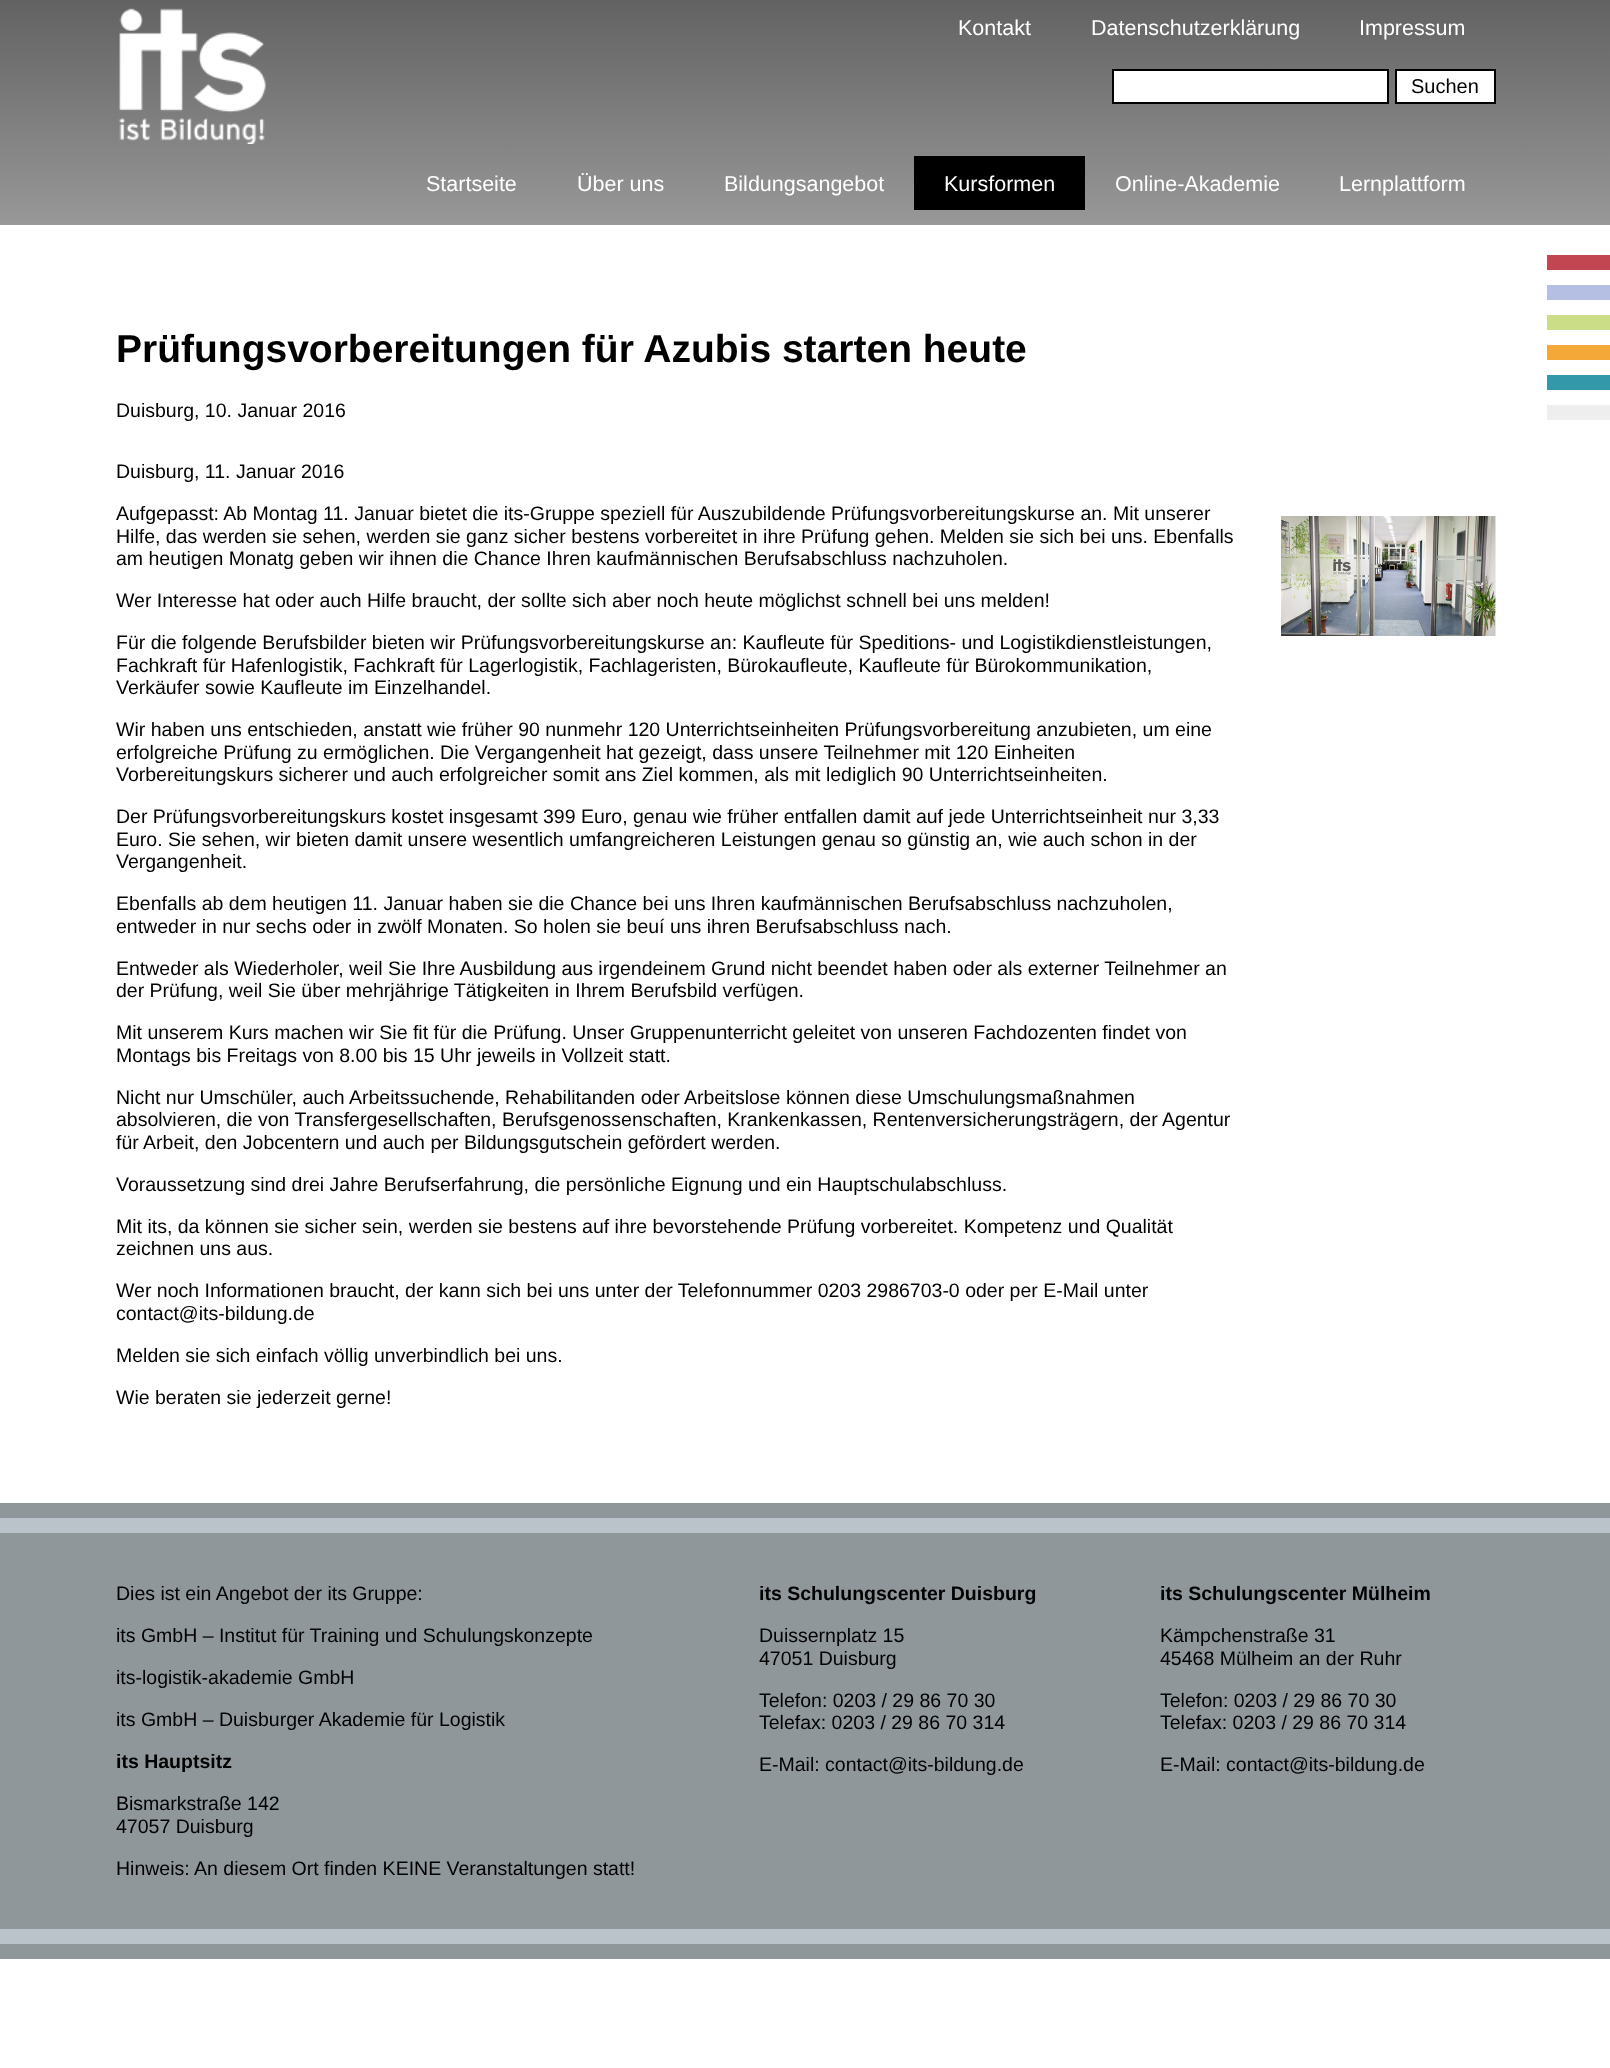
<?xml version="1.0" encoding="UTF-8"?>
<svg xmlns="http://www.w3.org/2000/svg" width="1610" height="2068">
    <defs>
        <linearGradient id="g1" gradientUnits="userSpaceOnUse" x1="806" y1="0" x2="806" y2="225"><stop offset="0" stop-color="#626262"/><stop offset="1" stop-color="#989898"/></linearGradient>
    </defs>
    <rect width="100%" height="100%" fill="#FFFFFF"/>
    <rect x="0" y="0" width="1610" height="225" fill="url(#g1)"/>
    <image x="119" y="8" width="147" height="136" href="img_01.png"/>
    <text x="958" y="35" font-family="Liberation Sans" font-size="21.5" fill="#FFFFFF">Kontakt</text>
    <text x="1091" y="35" font-family="Liberation Sans" font-size="21.5" fill="#FFFFFF">Datenschutzerklärung</text>
    <text x="1359" y="35" font-family="Liberation Sans" font-size="21.5" fill="#FFFFFF">Impressum</text>
    <rect x="1113" y="70" width="275" height="33" fill="#FFFFFF" stroke="#000000" stroke-width="2"/>
    <rect x="1396" y="70" width="99" height="33" fill="#FFFFFF" stroke="#000000" stroke-width="2"/>
    <text x="1411" y="93" font-family="Liberation Sans" font-size="20" fill="#000000">Suchen</text>
    <text x="426" y="191" font-family="Liberation Sans" font-size="21.5" fill="#FFFFFF">Startseite</text>
    <text x="577" y="191" font-family="Liberation Sans" font-size="21.5" fill="#FFFFFF">Über uns</text>
    <text x="724" y="191" font-family="Liberation Sans" font-size="21.5" fill="#FFFFFF">Bildungsangebot</text>
    <rect x="914" y="156" width="171" height="54" fill="#000000"/>
    <text x="944" y="191" font-family="Liberation Sans" font-size="21.5" fill="#FFFFFF">Kursformen</text>
    <text x="1115" y="191" font-family="Liberation Sans" font-size="21.5" fill="#FFFFFF">Online-Akademie</text>
    <text x="1339" y="191" font-family="Liberation Sans" font-size="21.5" fill="#FFFFFF">Lernplattform</text>
    <text x="116" y="362" font-family="Liberation Sans" font-size="39" font-weight="700" fill="#000000">Prüfungsvorbereitungen für Azubis starten heute</text>
    <text x="116" y="417" font-family="Liberation Sans" font-size="19.5" fill="#000000">Duisburg, 10. Januar 2016</text>
    <text x="116" y="478" font-family="Liberation Sans" font-size="19.5" fill="#000000">Duisburg, 11. Januar 2016</text>
    <text font-family="Liberation Sans" font-size="19.5" fill="#000000">
        <tspan x="116" y="520">Aufgepasst: Ab Montag 11. Januar bietet die its-Gruppe speziell für Auszubildende Prüfungsvorbereitungskurse an. Mit unserer</tspan>
        <tspan x="116" y="543">Hilfe, das werden sie sehen, werden sie ganz sicher bestens vorbereitet in ihre Prüfung gehen. Melden sie sich bei uns. Ebenfalls</tspan>
        <tspan x="116" y="565">am heutigen Monatg geben wir ihnen die Chance Ihren kaufmännischen Berufsabschluss nachzuholen.</tspan>
    </text>
    <text x="116" y="607" font-family="Liberation Sans" font-size="19.5" fill="#000000">Wer Interesse hat oder auch Hilfe braucht, der sollte sich aber noch heute möglichst schnell bei uns melden!</text>
    <text font-family="Liberation Sans" font-size="19.5" fill="#000000">
        <tspan x="116" y="649">Für die folgende Berufsbilder bieten wir Prüfungsvorbereitungskurse an: Kaufleute für Speditions- und Logistikdienstleistungen,</tspan>
        <tspan x="116" y="672">Fachkraft für Hafenlogistik, Fachkraft für Lagerlogistik, Fachlageristen, Bürokaufleute, Kaufleute für Bürokommunikation,</tspan>
        <tspan x="116" y="694">Verkäufer sowie Kaufleute im Einzelhandel.</tspan>
    </text>
    <text font-family="Liberation Sans" font-size="19.5" fill="#000000">
        <tspan x="116" y="736">Wir haben uns entschieden, anstatt wie früher 90 nunmehr 120 Unterrichtseinheiten Prüfungsvorbereitung anzubieten, um eine</tspan>
        <tspan x="116" y="759">erfolgreiche Prüfung zu ermöglichen. Die Vergangenheit hat gezeigt, dass unsere Teilnehmer mit 120 Einheiten</tspan>
        <tspan x="116" y="781">Vorbereitungskurs sicherer und auch erfolgreicher somit ans Ziel kommen, als mit lediglich 90 Unterrichtseinheiten.</tspan>
    </text>
    <text font-family="Liberation Sans" font-size="19.5" fill="#000000">
        <tspan x="116" y="823">Der Prüfungsvorbereitungskurs kostet insgesamt 399 Euro, genau wie früher entfallen damit auf jede Unterrichtseinheit nur 3,33</tspan>
        <tspan x="116" y="846">Euro. Sie sehen, wir bieten damit unsere wesentlich umfangreicheren Leistungen genau so günstig an, wie auch schon in der</tspan>
        <tspan x="116" y="868">Vergangenheit.</tspan>
    </text>
    <text font-family="Liberation Sans" font-size="19.5" fill="#000000">
        <tspan x="116" y="910">Ebenfalls ab dem heutigen 11. Januar haben sie die Chance bei uns Ihren kaufmännischen Berufsabschluss nachzuholen,</tspan>
        <tspan x="116" y="933">entweder in nur sechs oder in zwölf Monaten. So holen sie beuí uns ihren Berufsabschluss nach.</tspan>
    </text>
    <text font-family="Liberation Sans" font-size="19.5" fill="#000000">
        <tspan x="116" y="975">Entweder als Wiederholer, weil Sie Ihre Ausbildung aus irgendeinem Grund nicht beendet haben oder als externer Teilnehmer an</tspan>
        <tspan x="116" y="997">der Prüfung, weil Sie über mehrjährige Tätigkeiten in Ihrem Berufsbild verfügen.</tspan>
    </text>
    <text font-family="Liberation Sans" font-size="19.5" fill="#000000">
        <tspan x="116" y="1039">Mit unserem Kurs machen wir Sie fit für die Prüfung. Unser Gruppenunterricht geleitet von unseren Fachdozenten findet von</tspan>
        <tspan x="116" y="1062">Montags bis Freitags von 8.00 bis 15 Uhr jeweils in Vollzeit statt.</tspan>
    </text>
    <text font-family="Liberation Sans" font-size="19.5" fill="#000000">
        <tspan x="116" y="1104">Nicht nur Umschüler, auch Arbeitssuchende, Rehabilitanden oder Arbeitslose können diese Umschulungsmaßnahmen</tspan>
        <tspan x="116" y="1126">absolvieren, die von Transfergesellschaften, Berufsgenossenschaften, Krankenkassen, Rentenversicherungsträgern, der Agentur</tspan>
        <tspan x="116" y="1149">für Arbeit, den Jobcentern und auch per Bildungsgutschein gefördert werden.</tspan>
    </text>
    <text x="116" y="1191" font-family="Liberation Sans" font-size="19.5" fill="#000000">Voraussetzung sind drei Jahre Berufserfahrung, die persönliche Eignung und ein Hauptschulabschluss.</text>
    <text font-family="Liberation Sans" font-size="19.5" fill="#000000">
        <tspan x="116" y="1233">Mit its, da können sie sicher sein, werden sie bestens auf ihre bevorstehende Prüfung vorbereitet. Kompetenz und Qualität</tspan>
        <tspan x="116" y="1255">zeichnen uns aus.</tspan>
    </text>
    <text font-family="Liberation Sans" font-size="19.5" fill="#000000">
        <tspan x="116" y="1297">Wer noch Informationen braucht, der kann sich bei uns unter der Telefonnummer 0203 2986703-0 oder per E-Mail unter</tspan>
        <tspan x="116" y="1320">contact@its-bildung.de</tspan>
    </text>
    <text x="116" y="1362" font-family="Liberation Sans" font-size="19.5" fill="#000000">Melden sie sich einfach völlig unverbindlich bei uns.</text>
    <text x="116" y="1404" font-family="Liberation Sans" font-size="19.5" fill="#000000">Wie beraten sie jederzeit gerne!</text>
    <image x="1281" y="516" width="215" height="120" href="img_02.png"/>
    <rect x="1547" y="255" width="63" height="15" fill="#C24651"/>
    <rect x="1547" y="285" width="63" height="15" fill="#B4BFE3"/>
    <rect x="1547" y="315" width="63" height="15" fill="#CCDD88"/>
    <rect x="1547" y="345" width="63" height="15" fill="#F3A837"/>
    <rect x="1547" y="375" width="63" height="15" fill="#3399AA"/>
    <rect x="1547" y="405" width="63" height="15" fill="#EEEEEE"/>
    <rect x="0" y="1503" width="1610" height="456" fill="#8F979B"/>
    <rect x="0" y="1518" width="1610" height="15" fill="#B9C3C9"/>
    <rect x="0" y="1929" width="1610" height="15" fill="#B9C3C9"/>
    <text x="116" y="1600" font-family="Liberation Sans" font-size="19.5" fill="#000000">Dies ist ein Angebot der its Gruppe:</text>
    <text x="116" y="1642" font-family="Liberation Sans" font-size="19.5" fill="#000000">its GmbH – Institut für Training und Schulungskonzepte</text>
    <text x="116" y="1684" font-family="Liberation Sans" font-size="19.5" fill="#000000">its-logistik-akademie GmbH</text>
    <text x="116" y="1726" font-family="Liberation Sans" font-size="19.5" fill="#000000">its GmbH – Duisburger Akademie für Logistik</text>
    <text x="116" y="1768" font-family="Liberation Sans" font-size="19.5" font-weight="700" fill="#000000">its Hauptsitz</text>
    <text font-family="Liberation Sans" font-size="19.5" fill="#000000">
        <tspan x="116" y="1810">Bismarkstraße 142</tspan>
        <tspan x="116" y="1833">47057 Duisburg</tspan>
    </text>
    <text x="116" y="1875" font-family="Liberation Sans" font-size="19.5" fill="#000000">Hinweis: An diesem Ort finden KEINE Veranstaltungen statt!</text>
    <text x="759" y="1600" font-family="Liberation Sans" font-size="19.5" font-weight="700" fill="#000000">its Schulungscenter Duisburg</text>
    <text font-family="Liberation Sans" font-size="19.5" fill="#000000">
        <tspan x="759" y="1642">Duissernplatz 15</tspan>
        <tspan x="759" y="1665">47051 Duisburg</tspan>
    </text>
    <text font-family="Liberation Sans" font-size="19.5" fill="#000000">
        <tspan x="759" y="1707">Telefon: 0203 / 29 86 70 30</tspan>
        <tspan x="759" y="1729">Telefax: 0203 / 29 86 70 314</tspan>
    </text>
    <text x="759" y="1771" font-family="Liberation Sans" font-size="19.5" fill="#000000">E-Mail: contact@its-bildung.de</text>
    <text x="1160" y="1600" font-family="Liberation Sans" font-size="19.5" font-weight="700" fill="#000000">its Schulungscenter Mülheim</text>
    <text font-family="Liberation Sans" font-size="19.5" fill="#000000">
        <tspan x="1160" y="1642">Kämpchenstraße 31</tspan>
        <tspan x="1160" y="1665">45468 Mülheim an der Ruhr</tspan>
    </text>
    <text font-family="Liberation Sans" font-size="19.5" fill="#000000">
        <tspan x="1160" y="1707">Telefon: 0203 / 29 86 70 30</tspan>
        <tspan x="1160" y="1729">Telefax: 0203 / 29 86 70 314</tspan>
    </text>
    <text x="1160" y="1771" font-family="Liberation Sans" font-size="19.5" fill="#000000">E-Mail: contact@its-bildung.de</text>
</svg>
